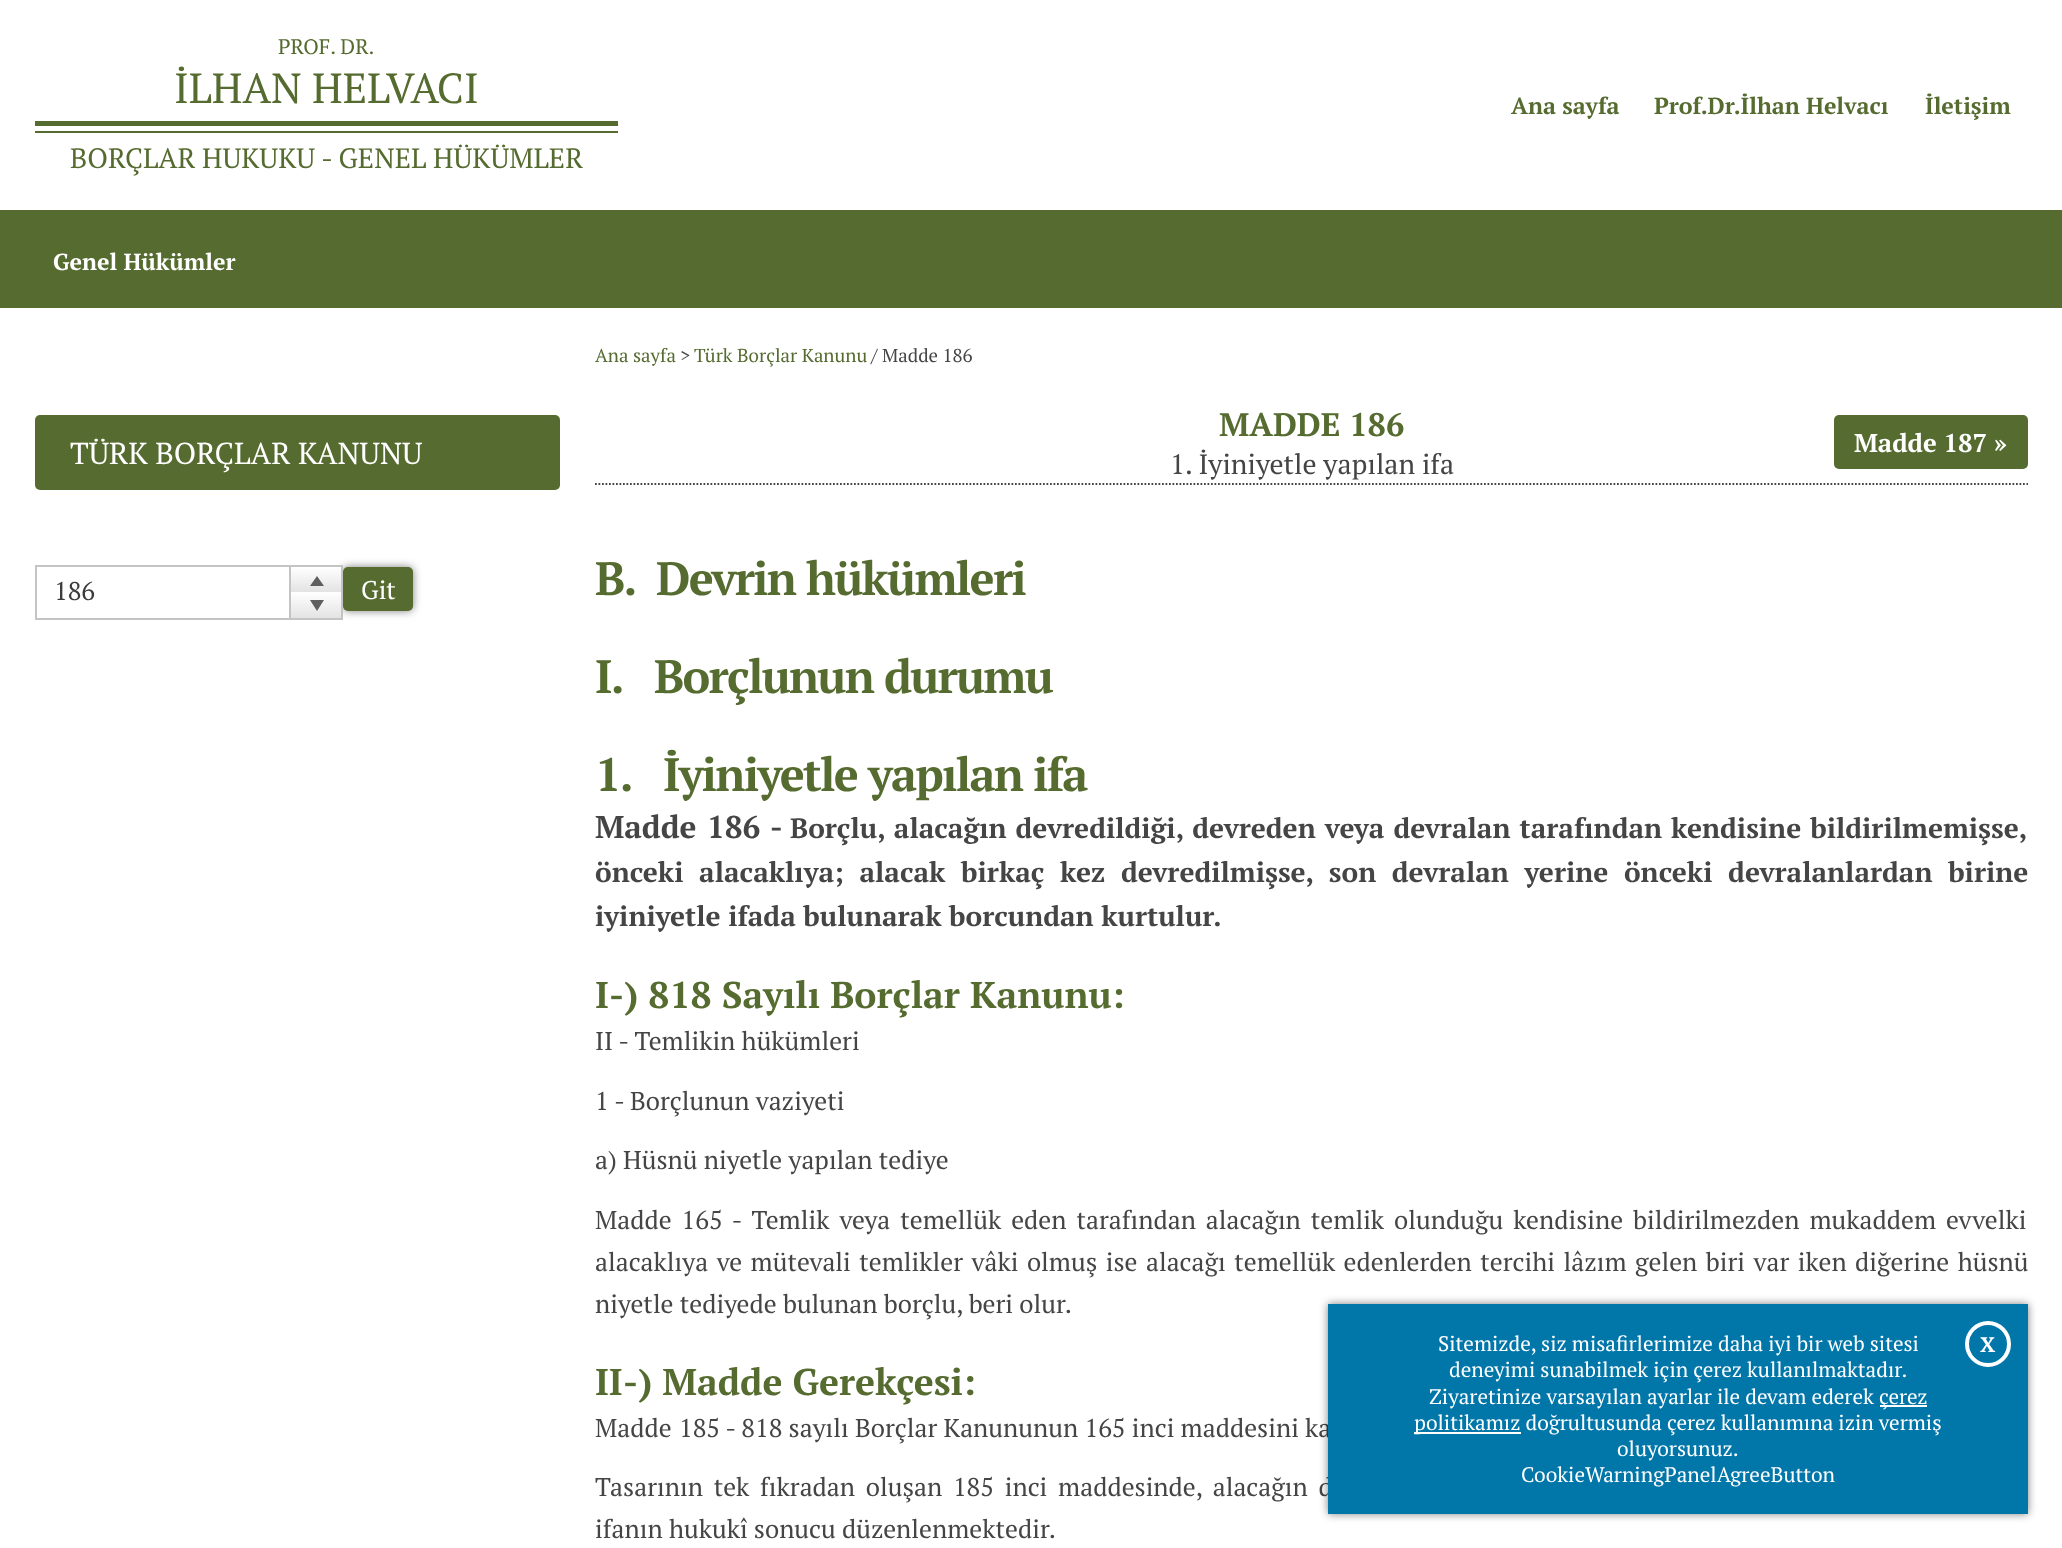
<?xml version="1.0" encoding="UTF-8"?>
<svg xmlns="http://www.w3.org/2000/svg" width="2062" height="1548">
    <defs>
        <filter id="blur1" x="-50%" y="-200%" width="200%" height="500%"><feGaussianBlur stdDeviation="4.5"/></filter>
        <linearGradient id="g1" gradientUnits="userSpaceOnUse" x1="316" y1="567" x2="316" y2="592"><stop offset="0" stop-color="#FFFFFF"/><stop offset="1" stop-color="#E3E3E3"/></linearGradient>
        <linearGradient id="g2" gradientUnits="userSpaceOnUse" x1="316" y1="592" x2="316" y2="618"><stop offset="0" stop-color="#FFFFFF"/><stop offset="1" stop-color="#E3E3E3"/></linearGradient>
    </defs>
    <rect width="100%" height="100%" fill="#FFFFFF"/>
    <text x="278" y="54" font-family="PT Serif" font-size="21" fill="#556B2F">PROF. DR.</text>
    <rect x="35" y="121" width="583" height="5" fill="#556B2F"/>
    <text x="174" y="103" font-family="PT Serif" font-size="42" fill="#556B2F">İLHAN HELVACI</text>
    <rect x="35" y="131" width="583" height="2" fill="#556B2F"/>
    <text x="70" y="168" font-family="PT Serif" font-size="28" fill="#556B2F">BORÇLAR HUKUKU</text>
    <text x="321" y="168" font-family="PT Serif" font-size="28" fill="#556B2F">- GENEL HÜKÜMLER</text>
    <text x="1511" y="114" font-family="PT Serif" font-size="23.25" font-weight="700" fill="#556B2F">Ana sayfa</text>
    <text x="1654" y="114" font-family="PT Serif" font-size="23.25" font-weight="700" fill="#556B2F">Prof.Dr.İlhan Helvacı</text>
    <text x="1925" y="114" font-family="PT Serif" font-size="23.25" font-weight="700" fill="#556B2F">İletişim</text>
    <rect x="0" y="210" width="2062" height="98" fill="#556B2F"/>
    <text x="53" y="270" font-family="PT Serif" font-size="23.25" font-weight="700" fill="#FFFFFF">Genel Hükümler</text>
    <text x="595" y="362" font-family="PT Serif" font-size="18.75" fill="#556B2F">Ana sayfa</text>
    <text x="680" y="362" font-family="PT Serif" font-size="18.75" fill="#454545">&gt;</text>
    <text x="694" y="362" font-family="PT Serif" font-size="18.75" fill="#556B2F">Türk Borçlar Kanunu</text>
    <text x="871" y="362" font-family="PT Serif" font-size="18.75" fill="#454545">/ Madde 186</text>
    <rect x="35" y="415" width="525" height="75" rx="5" fill="#556B2F"/>
    <text x="70" y="464" font-family="PT Serif" font-size="30.25" fill="#FFFFFF">TÜRK BORÇLAR KANUNU</text>
    <rect x="343" y="567" width="70" height="44" rx="5" fill="#000000" fill-opacity="0.5" filter="url(#blur1)"/>
    <rect x="36" y="566" width="306" height="53" fill="none" stroke="#C4C4C4" stroke-width="2"/>
    <text x="54" y="600" font-family="PT Serif" font-size="25.67" fill="#3B3B3B">186</text>
    <rect x="291" y="567" width="50" height="25" fill="url(#g1)"/>
    <rect x="289" y="567" width="2" height="51" fill="#C4C4C4"/>
    <rect x="291" y="592" width="50" height="26" fill="url(#g2)"/>
    <path d="M 317 576 L 324 586 H 310 Z M 317 611 L 310 600 H 324 Z" fill="#5F5F5F"/>
    <rect x="343" y="567" width="70" height="44" rx="5" fill="#556B2F"/>
    <text x="361" y="599" font-family="PT Serif" font-size="25.67" fill="#FFFFFF">Git</text>
    <text x="1219" y="436" font-family="PT Serif" font-size="32.5" font-weight="700" fill="#556B2F">MADDE 186</text>
    <rect x="1834" y="415" width="194" height="54" rx="5" fill="#556B2F"/>
    <text x="1854" y="452" font-family="PT Serif" font-size="25.67" font-weight="700" fill="#FFFFFF">Madde 187 »</text>
    <path d="M 595 484 H 2028" fill="none" stroke="#454545" stroke-width="1.8" stroke-dasharray="1.75 1.75"/>
    <text x="1170" y="474" font-family="PT Serif" font-size="28" fill="#454545">1. İyiniyetle yapılan ifa</text>
    <text x="595" y="595" font-family="PT Serif" font-size="46.75" font-weight="700" letter-spacing="-1.75" fill="#556B2F">B.</text>
    <text x="656" y="595" font-family="PT Serif" font-size="46.75" font-weight="700" letter-spacing="-1.75" fill="#556B2F">Devrin hükümleri</text>
    <text x="595" y="693" font-family="PT Serif" font-size="46.75" font-weight="700" letter-spacing="-1.75" fill="#556B2F">I.</text>
    <text x="654" y="693" font-family="PT Serif" font-size="46.75" font-weight="700" letter-spacing="-1.75" fill="#556B2F">Borçlunun durumu</text>
    <text x="595" y="791" font-family="PT Serif" font-size="46.75" font-weight="700" letter-spacing="-1.75" fill="#556B2F">1.</text>
    <text x="663" y="791" font-family="PT Serif" font-size="46.75" font-weight="700" letter-spacing="-1.75" fill="#556B2F">İyiniyetle yapılan ifa</text>
    <text x="595" y="838" word-spacing="2" font-family="PT Serif" font-size="31.5" font-weight="700" fill="#454545">Madde 186 -</text>
    <text x="790" y="838" word-spacing="1.5" font-family="PT Serif" font-size="28" font-weight="700" fill="#454545">Borçlu, alacağın devredildiği, devreden veya devralan tarafından kendisine bildirilmemişse,</text>
    <text font-family="PT Serif" font-size="28" font-weight="700" fill="#454545">
        <tspan x="595" y="882" word-spacing="8.1">önceki alacaklıya; alacak birkaç kez devredilmişse, son devralan yerine önceki devralanlardan birine</tspan>
        <tspan x="595" y="926">iyiniyetle ifada bulunarak borcundan kurtulur.</tspan>
    </text>
    <text x="595" y="1008" font-family="PT Serif" font-size="37.3" font-weight="700" fill="#556B2F">I-) 818 Sayılı Borçlar Kanunu:</text>
    <text x="595" y="1050" font-family="PT Serif" font-size="25.67" fill="#454545">II - Temlikin hükümleri</text>
    <text x="595" y="1110" font-family="PT Serif" font-size="25.67" fill="#454545">1 - Borçlunun vaziyeti</text>
    <text x="595" y="1169" font-family="PT Serif" font-size="25.67" fill="#454545">a) Hüsnü niyetle yapılan tediye</text>
    <text font-family="PT Serif" font-size="25.67" fill="#454545">
        <tspan x="595" y="1229" word-spacing="3.75">Madde 165 - Temlik veya temellük eden tarafından alacağın temlik olunduğu kendisine bildirilmezden mukaddem evvelki</tspan>
        <tspan x="595" y="1271" word-spacing="2.25">alacaklıya ve mütevali temlikler vâki olmuş ise alacağı temellük edenlerden tercihi lâzım gelen biri var iken diğerine hüsnü</tspan>
        <tspan x="595" y="1313">niyetle tediyede bulunan borçlu, beri olur.</tspan>
    </text>
    <text x="595" y="1395" font-family="PT Serif" font-size="37.3" font-weight="700" fill="#556B2F">II-) Madde Gerekçesi:</text>
    <text x="595" y="1437" font-family="PT Serif" font-size="25.67" fill="#454545">Madde</text>
    <text x="679" y="1437" font-family="PT Serif" font-size="25.67" fill="#454545">185 - 818 sayılı Borçlar Kanununun 165 inci maddesini ka</text>
    <text font-family="PT Serif" font-size="25.67" fill="#454545">
        <tspan x="595" y="1496" word-spacing="4.5">Tasarının tek fıkradan oluşan 185 inci maddesinde, alacağın d</tspan>
        <tspan x="595" y="1538">ifanın hukukî sonucu düzenlenmektedir.</tspan>
    </text>
    <rect x="1328" y="1304" width="700" height="210" fill="#000000" fill-opacity="0.5" filter="url(#blur1)"/>
    <rect x="1328" y="1304" width="700" height="210" fill="#0076A9"/>
    <text x="1438" y="1351" font-family="PT Serif" font-size="21" fill="#FFFFFF">Sitemizde, siz misafirlerimize daha iyi bir web sitesi</text>
    <text x="1449" y="1377" font-family="PT Serif" font-size="21" fill="#FFFFFF">deneyimi sunabilmek için çerez kullanılmaktadır.</text>
    <text x="1429" y="1404" font-family="PT Serif" font-size="21" fill="#FFFFFF">Ziyaretinize varsayılan ayarlar ile devam ederek</text>
    <rect x="1880" y="1405" width="47" height="2" fill="#FFFFFF"/>
    <text x="1879" y="1404" font-family="PT Serif" font-size="21" fill="#FFFFFF">çerez</text>
    <rect x="1414" y="1432" width="107" height="2" fill="#FFFFFF"/>
    <text x="1414" y="1430" font-family="PT Serif" font-size="21" fill="#FFFFFF">politikamız doğrultusunda çerez kullanımına izin vermiş</text>
    <text x="1617" y="1456" font-family="PT Serif" font-size="21" fill="#FFFFFF">oluyorsunuz.</text>
    <text x="1521" y="1482" font-family="PT Serif" font-size="21" fill="#FFFFFF">CookieWarningPanelAgreeButton</text>
    <circle cx="1988" cy="1344" r="21" fill="none" stroke="#FFFFFF" stroke-width="4"/>
    <text x="1980" y="1352" font-family="PT Serif" font-size="21" font-weight="700" fill="#FFFFFF">X</text>
</svg>
